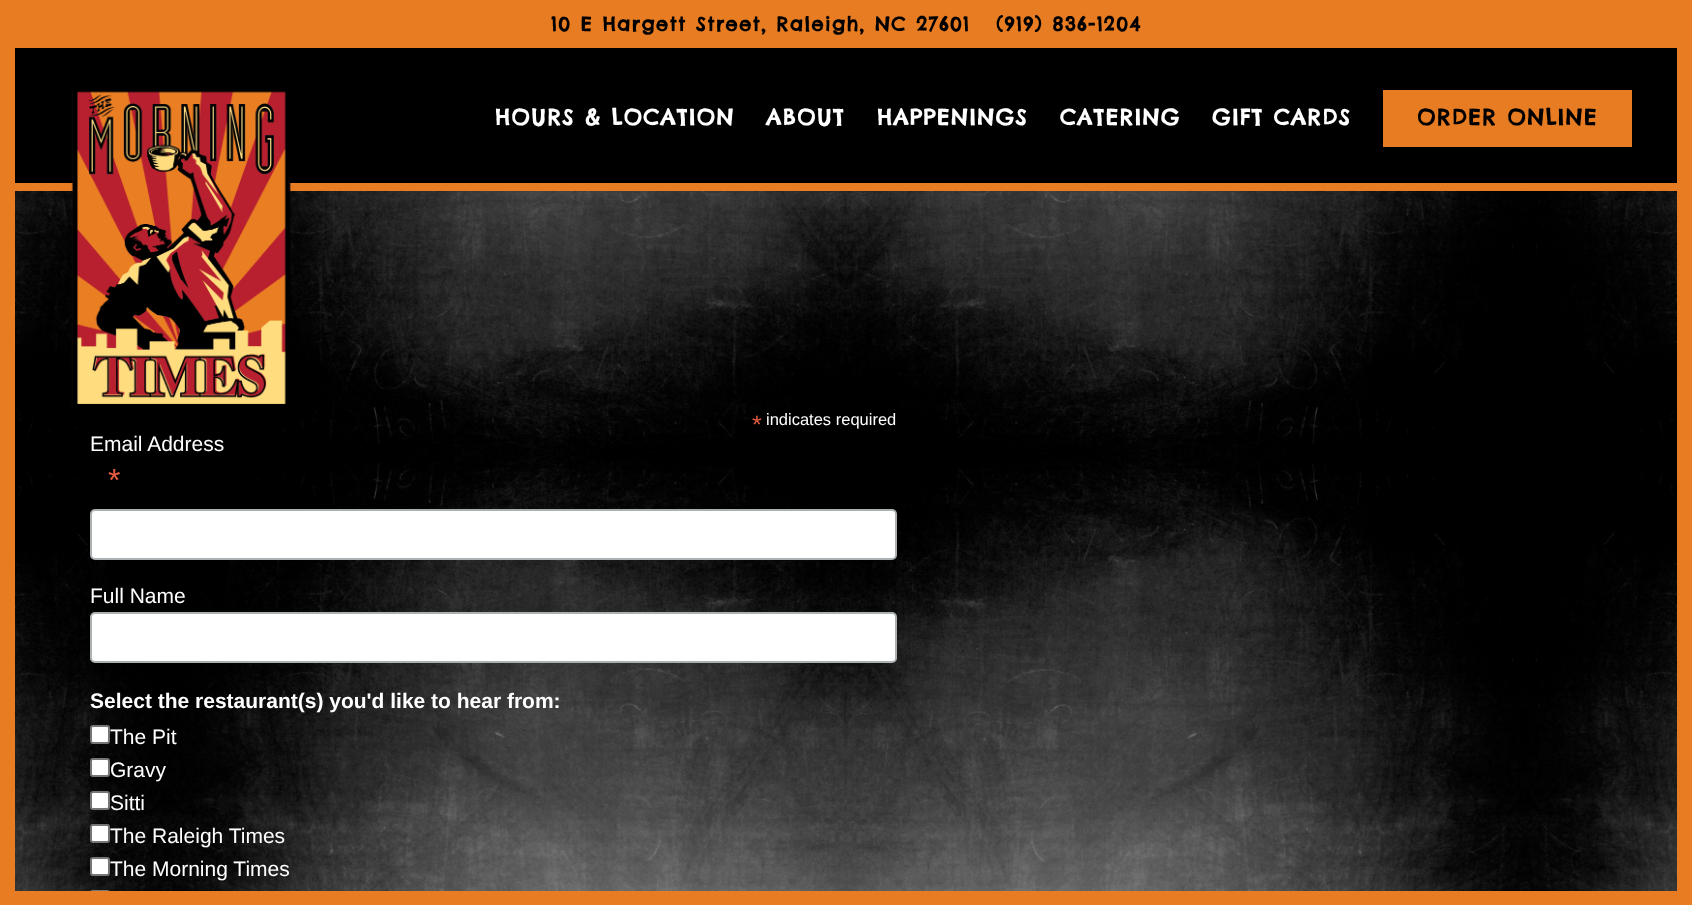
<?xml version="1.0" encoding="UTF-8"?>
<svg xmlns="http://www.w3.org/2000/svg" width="1692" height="905">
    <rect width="100%" height="100%" fill="#FFFFFF"/>
    <image x="15" y="191" width="1662" height="700" href="img_01.png"/>
    <rect x="15" y="15" width="1662" height="33" fill="#E77C22"/>
    <rect x="15" y="48" width="1662" height="135" fill="#000000"/>
    <rect x="15" y="183" width="1662" height="8" fill="#E77C22"/>
    <image x="71" y="88" width="220" height="320" href="img_02.png"/>
    <rect x="1383" y="90" width="249" height="57" fill="#E77C22"/>
    <rect x="91" y="510" width="805" height="49" rx="4" fill="#FFFFFF" stroke="#ABB0B2" stroke-width="2"/>
    <rect x="91" y="613" width="805" height="49" rx="4" fill="#FFFFFF" stroke="#ABB0B2" stroke-width="2"/>
    <rect x="91" y="726" width="18" height="17" rx="2" fill="#FFFFFF" stroke="#767676" stroke-width="2"/>
    <rect x="91" y="759" width="18" height="17" rx="2" fill="#FFFFFF" stroke="#767676" stroke-width="2"/>
    <rect x="91" y="792" width="18" height="17" rx="2" fill="#FFFFFF" stroke="#767676" stroke-width="2"/>
    <rect x="91" y="825" width="18" height="17" rx="2" fill="#FFFFFF" stroke="#767676" stroke-width="2"/>
    <rect x="91" y="858" width="18" height="17" rx="2" fill="#FFFFFF" stroke="#767676" stroke-width="2"/>
    <rect x="91" y="891" width="18" height="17" rx="2" fill="none" stroke="#767676" stroke-width="2"/>
    <rect x="7.5" y="7.5" width="1677" height="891" fill="none" stroke="#E77C22" stroke-width="15"/>
    <text x="551" y="31" font-family="Chelsea Market" font-size="19.2" font-weight="700" letter-spacing="1.5" fill="#000000">10 E Hargett Street, Raleigh, NC 27601</text>
    <text x="996" y="31" font-family="Chelsea Market" font-size="19.2" font-weight="700" letter-spacing="1.5" fill="#000000">(919) 836-1204</text>
    <text x="495" y="125" font-family="Chelsea Market" font-size="21.6" font-weight="700" letter-spacing="1.5" fill="#FFFFFF">HOURS &amp; LOCATION</text>
    <text x="766" y="125" font-family="Chelsea Market" font-size="21.6" font-weight="700" letter-spacing="1.5" fill="#FFFFFF">ABOUT</text>
    <text x="877" y="125" font-family="Chelsea Market" font-size="21.6" font-weight="700" letter-spacing="1.5" fill="#FFFFFF">HAPPENINGS</text>
    <text x="1060" y="125" font-family="Chelsea Market" font-size="21.6" font-weight="700" letter-spacing="1.5" fill="#FFFFFF">CATERING</text>
    <text x="1212" y="125" font-family="Chelsea Market" font-size="21.6" font-weight="700" letter-spacing="1.5" fill="#FFFFFF">GIFT CARDS</text>
    <text x="1417" y="125" font-family="Chelsea Market" font-size="21.6" font-weight="700" letter-spacing="1.5" fill="#000000">ORDER ONLINE</text>
    <text x="752" y="433" font-family="Liberation Sans" font-size="25" fill="#E85C41">*</text>
    <text x="766" y="425" font-family="Liberation Sans" font-size="16.5" fill="#FFFFFF">indicates required</text>
    <text x="90" y="451" font-family="Liberation Sans" font-size="21" fill="#FFFFFF">Email Address</text>
    <text x="108" y="491" font-family="Liberation Sans" font-size="32" fill="#E85C41">*</text>
    <text x="90" y="603" font-family="Liberation Sans" font-size="21" fill="#FFFFFF">Full Name</text>
    <text x="90" y="708" font-family="Liberation Sans" font-size="21" font-weight="700" fill="#FFFFFF">Select the restaurant(s) you'd like to hear from:</text>
    <text font-family="Liberation Sans" font-size="21" fill="#FFFFFF">
        <tspan x="110" y="744">The Pit</tspan>
        <tspan x="110" y="777">Gravy</tspan>
        <tspan x="110" y="810">Sitti</tspan>
        <tspan x="110" y="843">The Raleigh Times</tspan>
        <tspan x="110" y="876">The Morning Times</tspan>
    </text>
</svg>
